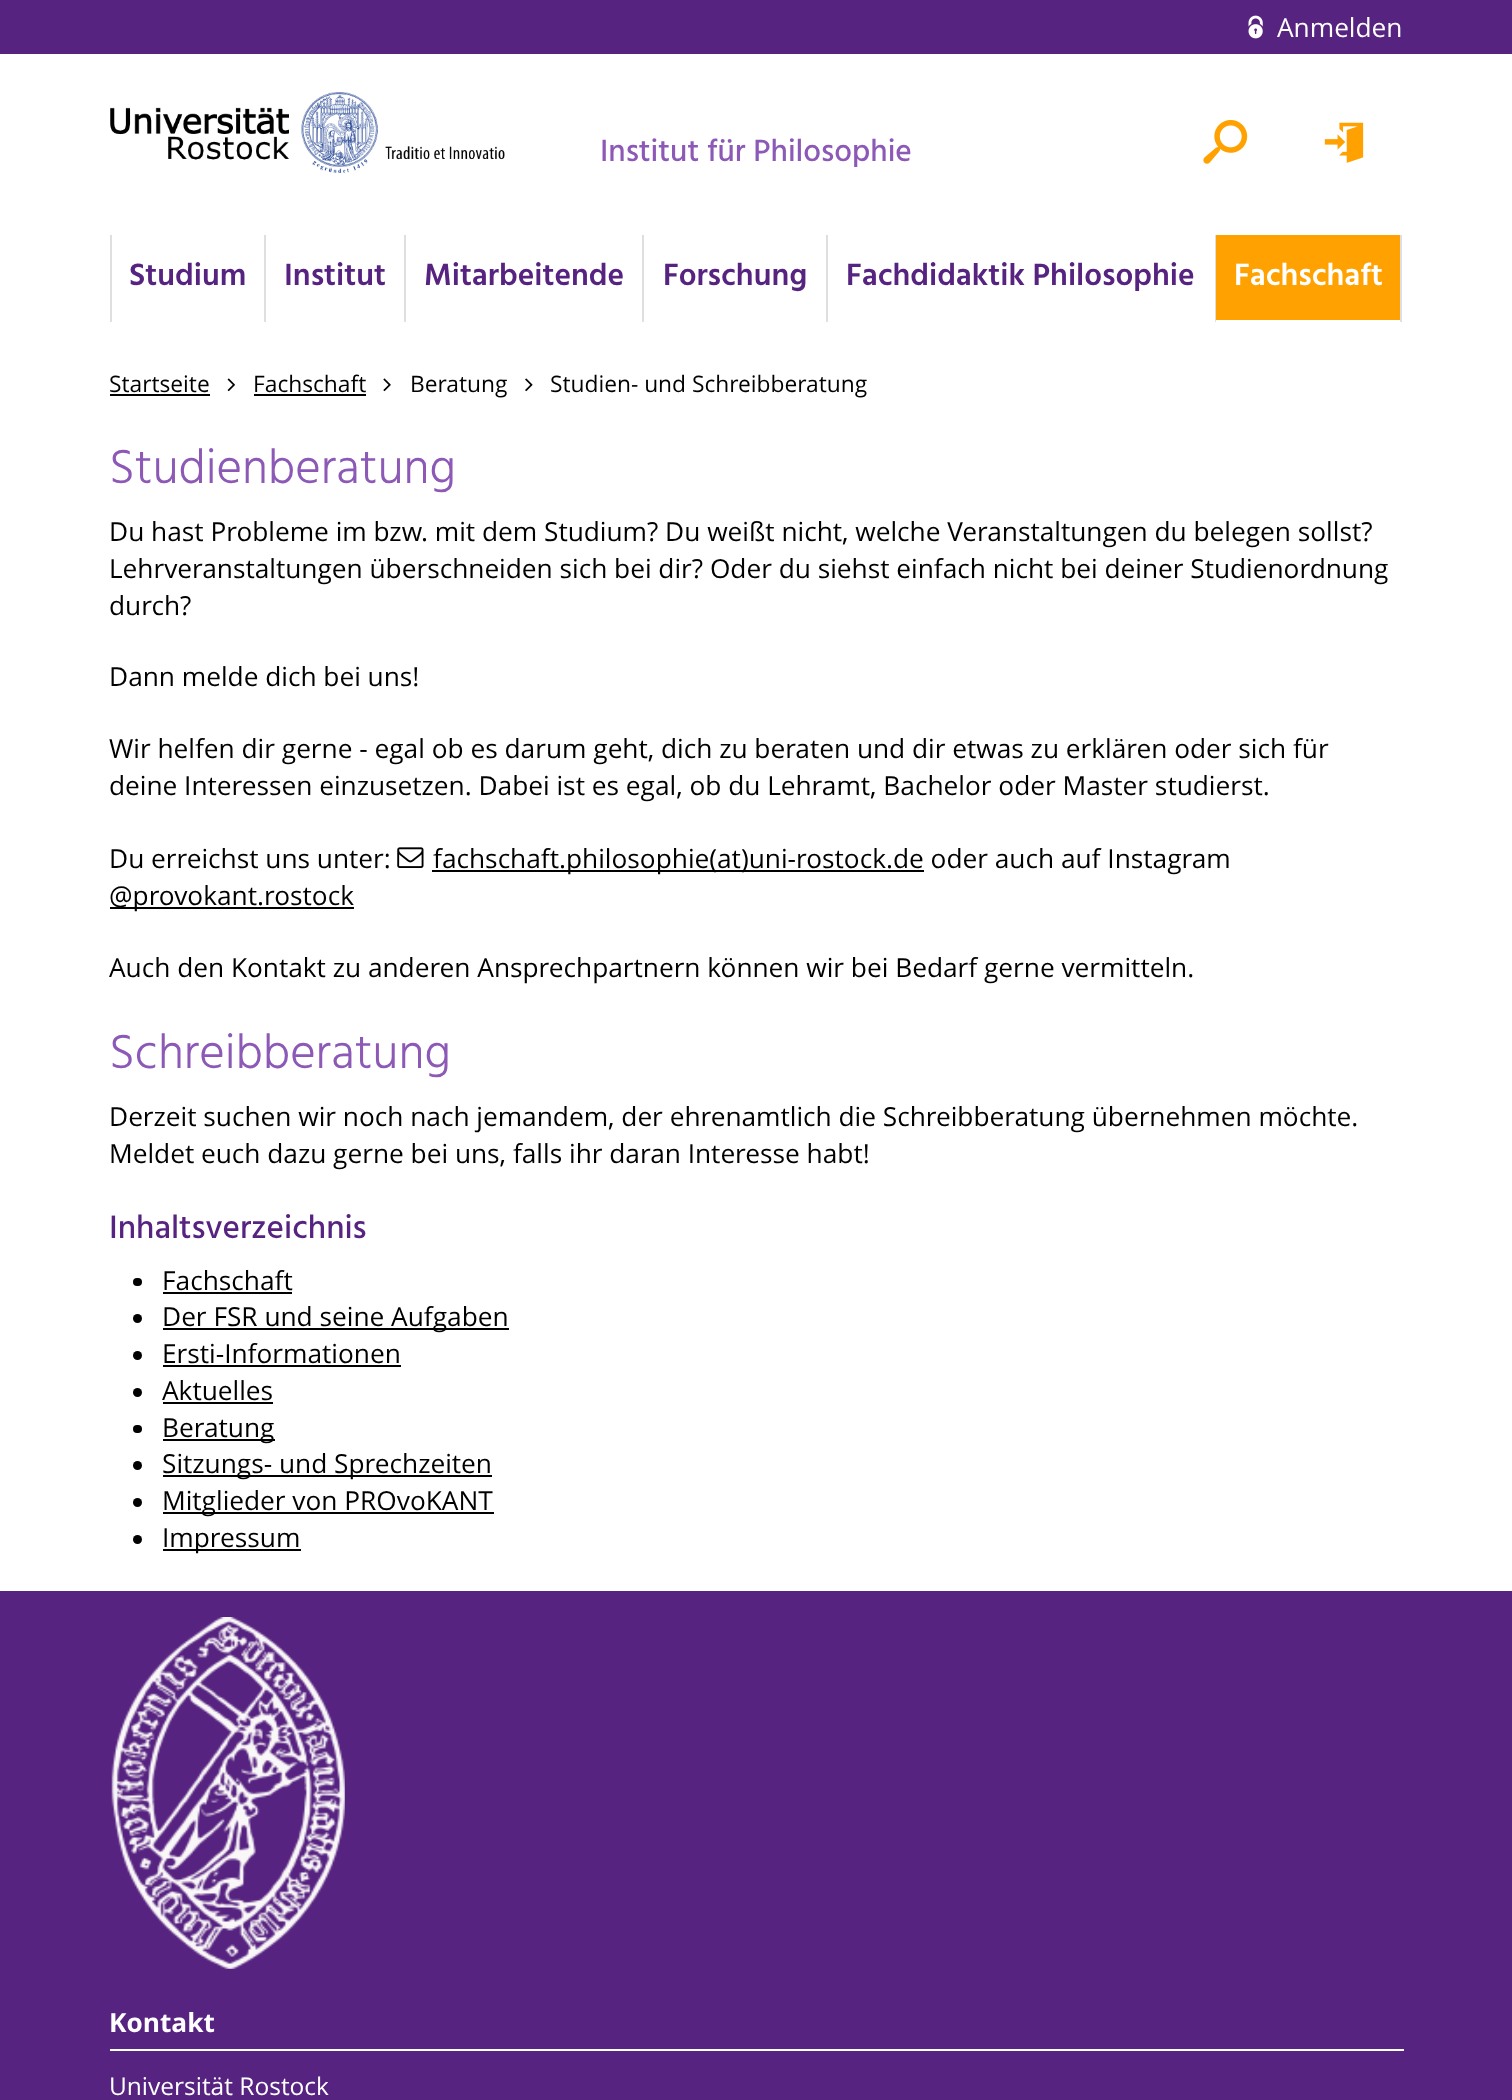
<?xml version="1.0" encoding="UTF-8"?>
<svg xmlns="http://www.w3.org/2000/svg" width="1512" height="2100">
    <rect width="100%" height="100%" fill="#FFFFFF"/>
    <rect x="0" y="0" width="1512" height="54" fill="#572381"/>
    <image x="1248" y="15" width="15" height="24" href="img_01.png"/>
    <text x="1277" y="37" font-family="Open Sans" font-size="26.25" fill="#FFFFFF">Anmelden</text>
    <image x="110" y="92" width="395" height="81" href="img_02.png"/>
    <text x="600" y="161" font-family="Hind" font-size="31.5" font-weight="500" fill="#8C59B6">Institut für Philosophie</text>
    <image x="1203" y="120" width="45" height="44" href="img_03.png"/>
    <image x="1324" y="122" width="40" height="41" href="img_04.png"/>
    <rect x="110" y="235" width="2" height="87" fill="#DFDFDF"/>
    <text x="129" y="285" font-family="Hind" font-size="31.5" font-weight="600" fill="#572381">Studium</text>
    <rect x="264" y="235" width="2" height="87" fill="#DFDFDF"/>
    <text x="284" y="285" font-family="Hind" font-size="31.5" font-weight="600" fill="#572381">Institut</text>
    <rect x="404" y="235" width="2" height="87" fill="#DFDFDF"/>
    <text x="424" y="285" font-family="Hind" font-size="31.5" font-weight="600" fill="#572381">Mitarbeitende</text>
    <rect x="642" y="235" width="2" height="87" fill="#DFDFDF"/>
    <text x="663" y="285" font-family="Hind" font-size="31.5" font-weight="600" fill="#572381">Forschung</text>
    <rect x="826" y="235" width="2" height="87" fill="#DFDFDF"/>
    <text x="846" y="285" font-family="Hind" font-size="31.5" font-weight="600" fill="#572381">Fachdidaktik Philosophie</text>
    <rect x="1400" y="235" width="2" height="87" fill="#DFDFDF"/>
    <rect x="1215" y="235" width="1" height="87" fill="#DFDFDF"/>
    <rect x="1216" y="235" width="184" height="85" fill="#FFA100"/>
    <text x="1234" y="285" font-family="Hind" font-size="31.5" font-weight="600" fill="#FFFFFF">Fachschaft</text>
    <text x="109" y="392" font-family="Open Sans" font-size="22.75" fill="#000000">Startseite</text>
    <rect x="110" y="394" width="100" height="2" fill="#000000"/>
    <image x="227" y="378" width="8" height="14" href="img_05.png"/>
    <text x="253" y="392" font-family="Open Sans" font-size="22.75" fill="#000000">Fachschaft</text>
    <rect x="254" y="394" width="112" height="2" fill="#000000"/>
    <image x="383" y="378" width="8" height="14" href="img_06.png"/>
    <text x="410" y="392" font-family="Open Sans" font-size="22.75" fill="#000000">Beratung</text>
    <image x="525" y="378" width="8" height="14" href="img_07.png"/>
    <text x="550" y="392" font-family="Open Sans" font-size="22.75" fill="#000000">Studien- und Schreibberatung</text>
    <text x="109" y="483" font-family="Hind" font-size="49" font-weight="300" fill="#8C59B6">Studienberatung</text>
    <text font-family="Open Sans" font-size="26.25" fill="#000000">
        <tspan x="109" y="541">Du hast Probleme im bzw. mit dem Studium? Du weißt nicht, welche Veranstaltungen du belegen sollst?</tspan>
        <tspan x="109" y="578">Lehrveranstaltungen überschneiden sich bei dir? Oder du siehst einfach nicht bei deiner Studienordnung</tspan>
        <tspan x="109" y="615">durch?</tspan>
    </text>
    <text x="109" y="686" font-family="Open Sans" font-size="26.25" fill="#000000">Dann melde dich bei uns!</text>
    <text font-family="Open Sans" font-size="26.25" fill="#000000">
        <tspan x="109" y="758">Wir helfen dir gerne - egal ob es darum geht, dich zu beraten und dir etwas zu erklären oder sich für</tspan>
        <tspan x="109" y="795">deine Interessen einzusetzen. Dabei ist es egal, ob du Lehramt, Bachelor oder Master studierst.</tspan>
    </text>
    <text x="109" y="868" font-family="Open Sans" font-size="26.25" fill="#000000">Du erreichst uns unter:</text>
    <image x="397" y="847" width="27" height="21" href="img_08.png"/>
    <rect x="432" y="870" width="492" height="2" fill="#000000"/>
    <text x="433" y="868" font-family="Open Sans" font-size="26.25" fill="#000000">fachschaft.philosophie(at)uni-rostock.de oder auch auf Instagram</text>
    <rect x="110" y="907" width="244" height="2" fill="#000000"/>
    <text x="109" y="905" font-family="Open Sans" font-size="26.25" fill="#000000">@provokant.rostock</text>
    <text x="109" y="977" font-family="Open Sans" font-size="26.25" fill="#000000">Auch den Kontakt zu anderen Ansprechpartnern können wir bei Bedarf gerne vermitteln.</text>
    <text x="109" y="1068" font-family="Hind" font-size="49" font-weight="300" fill="#8C59B6">Schreibberatung</text>
    <text font-family="Open Sans" font-size="26.25" fill="#000000">
        <tspan x="109" y="1126">Derzeit suchen wir noch nach jemandem, der ehrenamtlich die Schreibberatung übernehmen möchte.</tspan>
        <tspan x="109" y="1163">Meldet euch dazu gerne bei uns, falls ihr daran Interesse habt!</tspan>
    </text>
    <text x="109" y="1238" font-family="Hind" font-size="33.25" font-weight="500" fill="#572381">Inhaltsverzeichnis</text>
    <rect x="133" y="1278" width="9" height="8" rx="4" fill="#000000"/>
    <text x="162" y="1290" font-family="Open Sans" font-size="26.25" fill="#000000">Fachschaft</text>
    <rect x="163" y="1292" width="129" height="2" fill="#000000"/>
    <circle cx="137.5" cy="1318.5" r="4.5" fill="#000000"/>
    <rect x="163" y="1328" width="346" height="2" fill="#000000"/>
    <text x="162" y="1326" font-family="Open Sans" font-size="26.25" fill="#000000">Der FSR und seine Aufgaben</text>
    <circle cx="137.5" cy="1355.5" r="4.5" fill="#000000"/>
    <text x="162" y="1363" font-family="Open Sans" font-size="26.25" fill="#000000">Ersti-Informationen</text>
    <rect x="163" y="1365" width="238" height="2" fill="#000000"/>
    <circle cx="137.5" cy="1392.5" r="4.5" fill="#000000"/>
    <text x="162" y="1400" font-family="Open Sans" font-size="26.25" fill="#000000">Aktuelles</text>
    <rect x="163" y="1402" width="110" height="2" fill="#000000"/>
    <rect x="133" y="1425" width="9" height="8" rx="4" fill="#000000"/>
    <rect x="163" y="1439" width="112" height="2" fill="#000000"/>
    <text x="162" y="1437" font-family="Open Sans" font-size="26.25" fill="#000000">Beratung</text>
    <circle cx="137.5" cy="1465.5" r="4.5" fill="#000000"/>
    <rect x="163" y="1475" width="329" height="2" fill="#000000"/>
    <text x="162" y="1473" font-family="Open Sans" font-size="26.25" fill="#000000">Sitzungs- und Sprechzeiten</text>
    <circle cx="137.5" cy="1502.5" r="4.5" fill="#000000"/>
    <rect x="163" y="1512" width="331" height="2" fill="#000000"/>
    <text x="162" y="1510" font-family="Open Sans" font-size="26.25" fill="#000000">Mitglieder von PROvoKANT</text>
    <circle cx="137.5" cy="1539.5" r="4.5" fill="#000000"/>
    <rect x="163" y="1549" width="138" height="2" fill="#000000"/>
    <text x="162" y="1547" font-family="Open Sans" font-size="26.25" fill="#000000">Impressum</text>
    <rect x="0" y="1591" width="1512" height="509" fill="#572381"/>
    <image x="111" y="1617" width="234" height="352" href="img_09.png"/>
    <rect x="110" y="2049" width="1294" height="2" fill="#FFFFFF"/>
    <text x="109" y="2032" font-family="Open Sans" font-size="26.25" font-weight="700" fill="#FFFFFF">Kontakt</text>
    <text x="109" y="2095" font-family="Open Sans" font-size="24.5" fill="#FFFFFF">Universität Rostock</text>
</svg>
